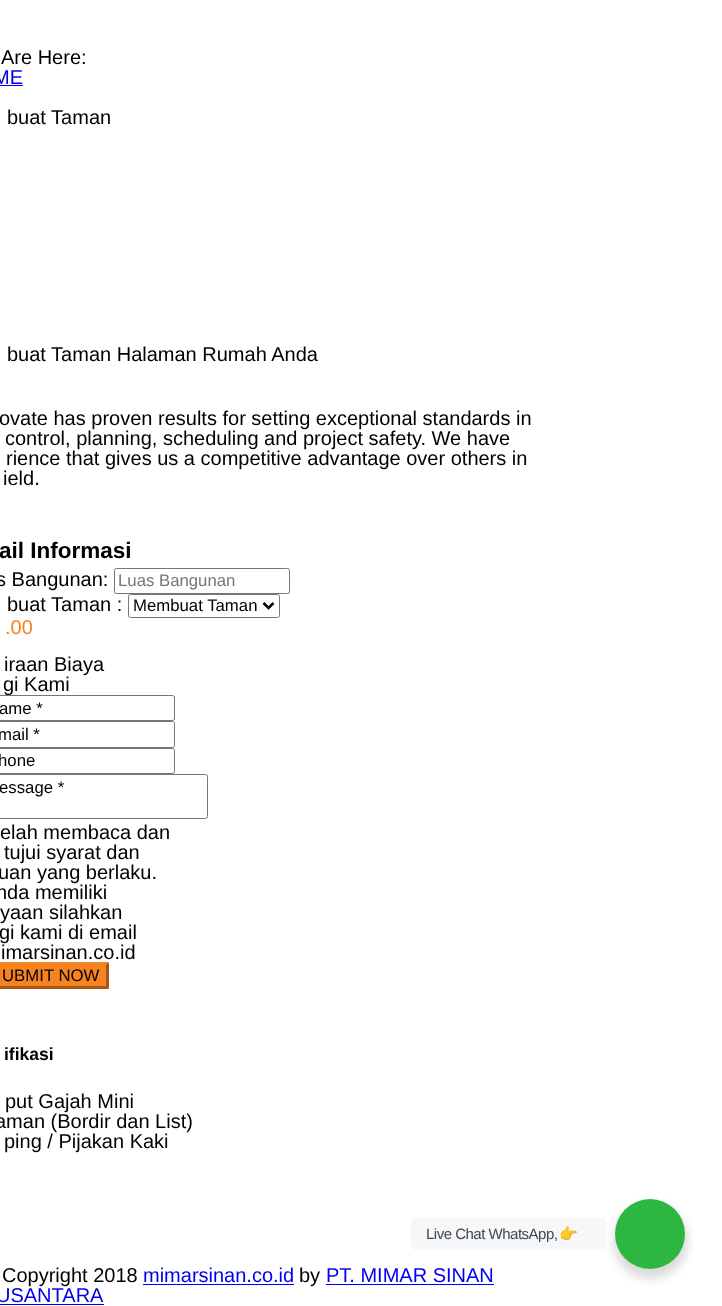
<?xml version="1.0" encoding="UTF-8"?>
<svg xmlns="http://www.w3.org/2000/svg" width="722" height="1306">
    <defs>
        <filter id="blur1" x="-50%" y="-200%" width="200%" height="500%"><feGaussianBlur stdDeviation="5"/></filter>
    </defs>
    <rect width="100%" height="100%" fill="#FFFFFF"/>
    <text x="1" y="64" font-family="Liberation Sans" font-size="20" fill="#000000">Are Here:</text>
    <text x="-7" y="84" font-family="Liberation Sans" font-size="20" fill="#0000EE">ME</text>
    <rect x="0" y="85" width="23" height="1" fill="#0000EE"/>
    <text x="7" y="124" font-family="Liberation Sans" font-size="20" fill="#000000">buat Taman</text>
    <text x="7" y="361" font-family="Liberation Sans" font-size="20" fill="#000000">buat Taman Halaman Rumah Anda</text>
    <text x="-1" y="425" font-family="Liberation Sans" font-size="20" fill="#000000">ovate has proven results for setting exceptional standards in</text>
    <text x="5" y="445" font-family="Liberation Sans" font-size="20" fill="#000000">control, planning, scheduling and project safety. We have</text>
    <text x="6" y="465" font-family="Liberation Sans" font-size="20" fill="#000000">rience that gives us a competitive advantage over others in</text>
    <text x="3" y="485" font-family="Liberation Sans" font-size="20" fill="#000000">ield.</text>
    <text x="-1" y="558" font-family="Liberation Sans" font-size="22.5" font-weight="700" fill="#000000">ail Informasi</text>
    <text x="-4" y="586" font-family="Liberation Sans" font-size="20" fill="#000000">s Bangunan:</text>
    <rect x="114.5" y="568.5" width="175" height="25" rx="2" fill="none" stroke="#767676"/>
    <text x="118" y="586" font-family="Liberation Sans" font-size="16.75" fill="#757575">Luas Bangunan</text>
    <text x="7" y="611" font-family="Liberation Sans" font-size="20" fill="#000000">buat Taman :</text>
    <rect x="128.5" y="594.5" width="151" height="23" rx="2" fill="none" stroke="#767676"/>
    <path d="M 263.5 603 L 268.5 608 L 273.5 603" fill="none" stroke="#000000" stroke-width="2.5"/>
    <text x="133" y="611" font-family="Liberation Sans" font-size="16.75" fill="#000000">Membuat Taman</text>
    <text x="5" y="634" font-family="Liberation Sans" font-size="20" fill="#F68220">.00</text>
    <text x="4" y="671" font-family="Liberation Sans" font-size="20" fill="#000000">iraan Biaya</text>
    <text x="3" y="691" font-family="Liberation Sans" font-size="20" fill="#000000">gi Kami</text>
    <rect x="-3.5" y="695.5" width="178" height="25" rx="2" fill="#FFFFFF" stroke="#767676"/>
    <text x="-1" y="714" font-family="Liberation Sans" font-size="16.75" fill="#000000">ame *</text>
    <rect x="-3.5" y="721.5" width="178" height="26" rx="2" fill="none" stroke="#767676"/>
    <text x="-2" y="740" font-family="Liberation Sans" font-size="16.75" fill="#000000">mail *</text>
    <rect x="-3.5" y="748.5" width="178" height="25" rx="2" fill="none" stroke="#767676"/>
    <text x="-2" y="766" font-family="Liberation Sans" font-size="16.75" fill="#000000">hone</text>
    <rect x="-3.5" y="774.5" width="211" height="44" rx="2" fill="none" stroke="#767676"/>
    <text x="-1" y="793" font-family="Liberation Sans" font-size="16.75" fill="#000000">essage *</text>
    <text x="0" y="839" font-family="Liberation Sans" font-size="20" fill="#000000">elah membaca dan</text>
    <text x="4" y="859" font-family="Liberation Sans" font-size="20" fill="#000000">tujui syarat dan</text>
    <text x="-2" y="879" font-family="Liberation Sans" font-size="20" fill="#000000">uan yang berlaku.</text>
    <text x="-4" y="899" font-family="Liberation Sans" font-size="20" fill="#000000">nda memiliki</text>
    <text x="0" y="919" font-family="Liberation Sans" font-size="20" fill="#000000">yaan silahkan</text>
    <text x="-1" y="939" font-family="Liberation Sans" font-size="20" fill="#000000">gi kami di email</text>
    <text x="1" y="959" font-family="Liberation Sans" font-size="20" fill="#000000">imarsinan.co.id</text>
    <rect x="0" y="963" width="109" height="26" fill="#F68220"/>
    <path d="M -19 962 H 109 L 106 965 H -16 Z" fill="#F68220"/>
    <path d="M 109 962.5 V 989 L 106 986 V 965 Z" fill="#A45715"/>
    <path d="M 109 989 H -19 L -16 986 H 106 Z" fill="#A45715"/>
    <text x="2" y="981" font-family="Liberation Sans" font-size="16.75" fill="#000000">UBMIT NOW</text>
    <text x="4" y="1060" font-family="Liberation Sans" font-size="17.5" font-weight="700" fill="#000000">ifikasi</text>
    <text x="5" y="1108" font-family="Liberation Sans" font-size="20" fill="#000000">put Gajah Mini</text>
    <text x="-5" y="1128" font-family="Liberation Sans" font-size="20" fill="#000000">aman (Bordir dan List)</text>
    <text x="4" y="1148" font-family="Liberation Sans" font-size="20" fill="#000000">ping / Pijakan Kaki</text>
    <text x="2" y="1282" font-family="Liberation Sans" font-size="20" fill="#000000">Copyright 2018</text>
    <text x="143" y="1282" font-family="Liberation Sans" font-size="20" fill="#0000EE">mimarsinan.co.id</text>
    <rect x="143" y="1284" width="151" height="1" fill="#0000EE"/>
    <text x="299" y="1282" font-family="Liberation Sans" font-size="20" fill="#000000">by</text>
    <text x="326" y="1282" font-family="Liberation Sans" font-size="20" fill="#0000EE">PT. MIMAR SINAN</text>
    <rect x="326" y="1284" width="168" height="1" fill="#0000EE"/>
    <text x="-4" y="1302" font-family="Liberation Sans" font-size="20" fill="#0000EE">USANTARA</text>
    <rect x="0" y="1304" width="104" height="1" fill="#0000EE"/>
    <rect x="613" y="1204" width="75" height="75" rx="37.5" fill="#000000" fill-opacity="0.14" filter="url(#blur1)"/>
    <rect x="411" y="1218" width="195" height="32" rx="5" fill="#F5F7F9"/>
    <text x="426" y="1239" font-family="Liberation Sans" font-size="15" letter-spacing="-0.5" fill="#43474E">Live Chat WhatsApp,</text>
    <text x="559" y="1239" font-family="Noto Color Emoji" font-size="15" letter-spacing="-0.5" fill="#43474E">👉</text>
    <circle cx="650" cy="1234" r="35" fill="#2DB742"/>
</svg>
